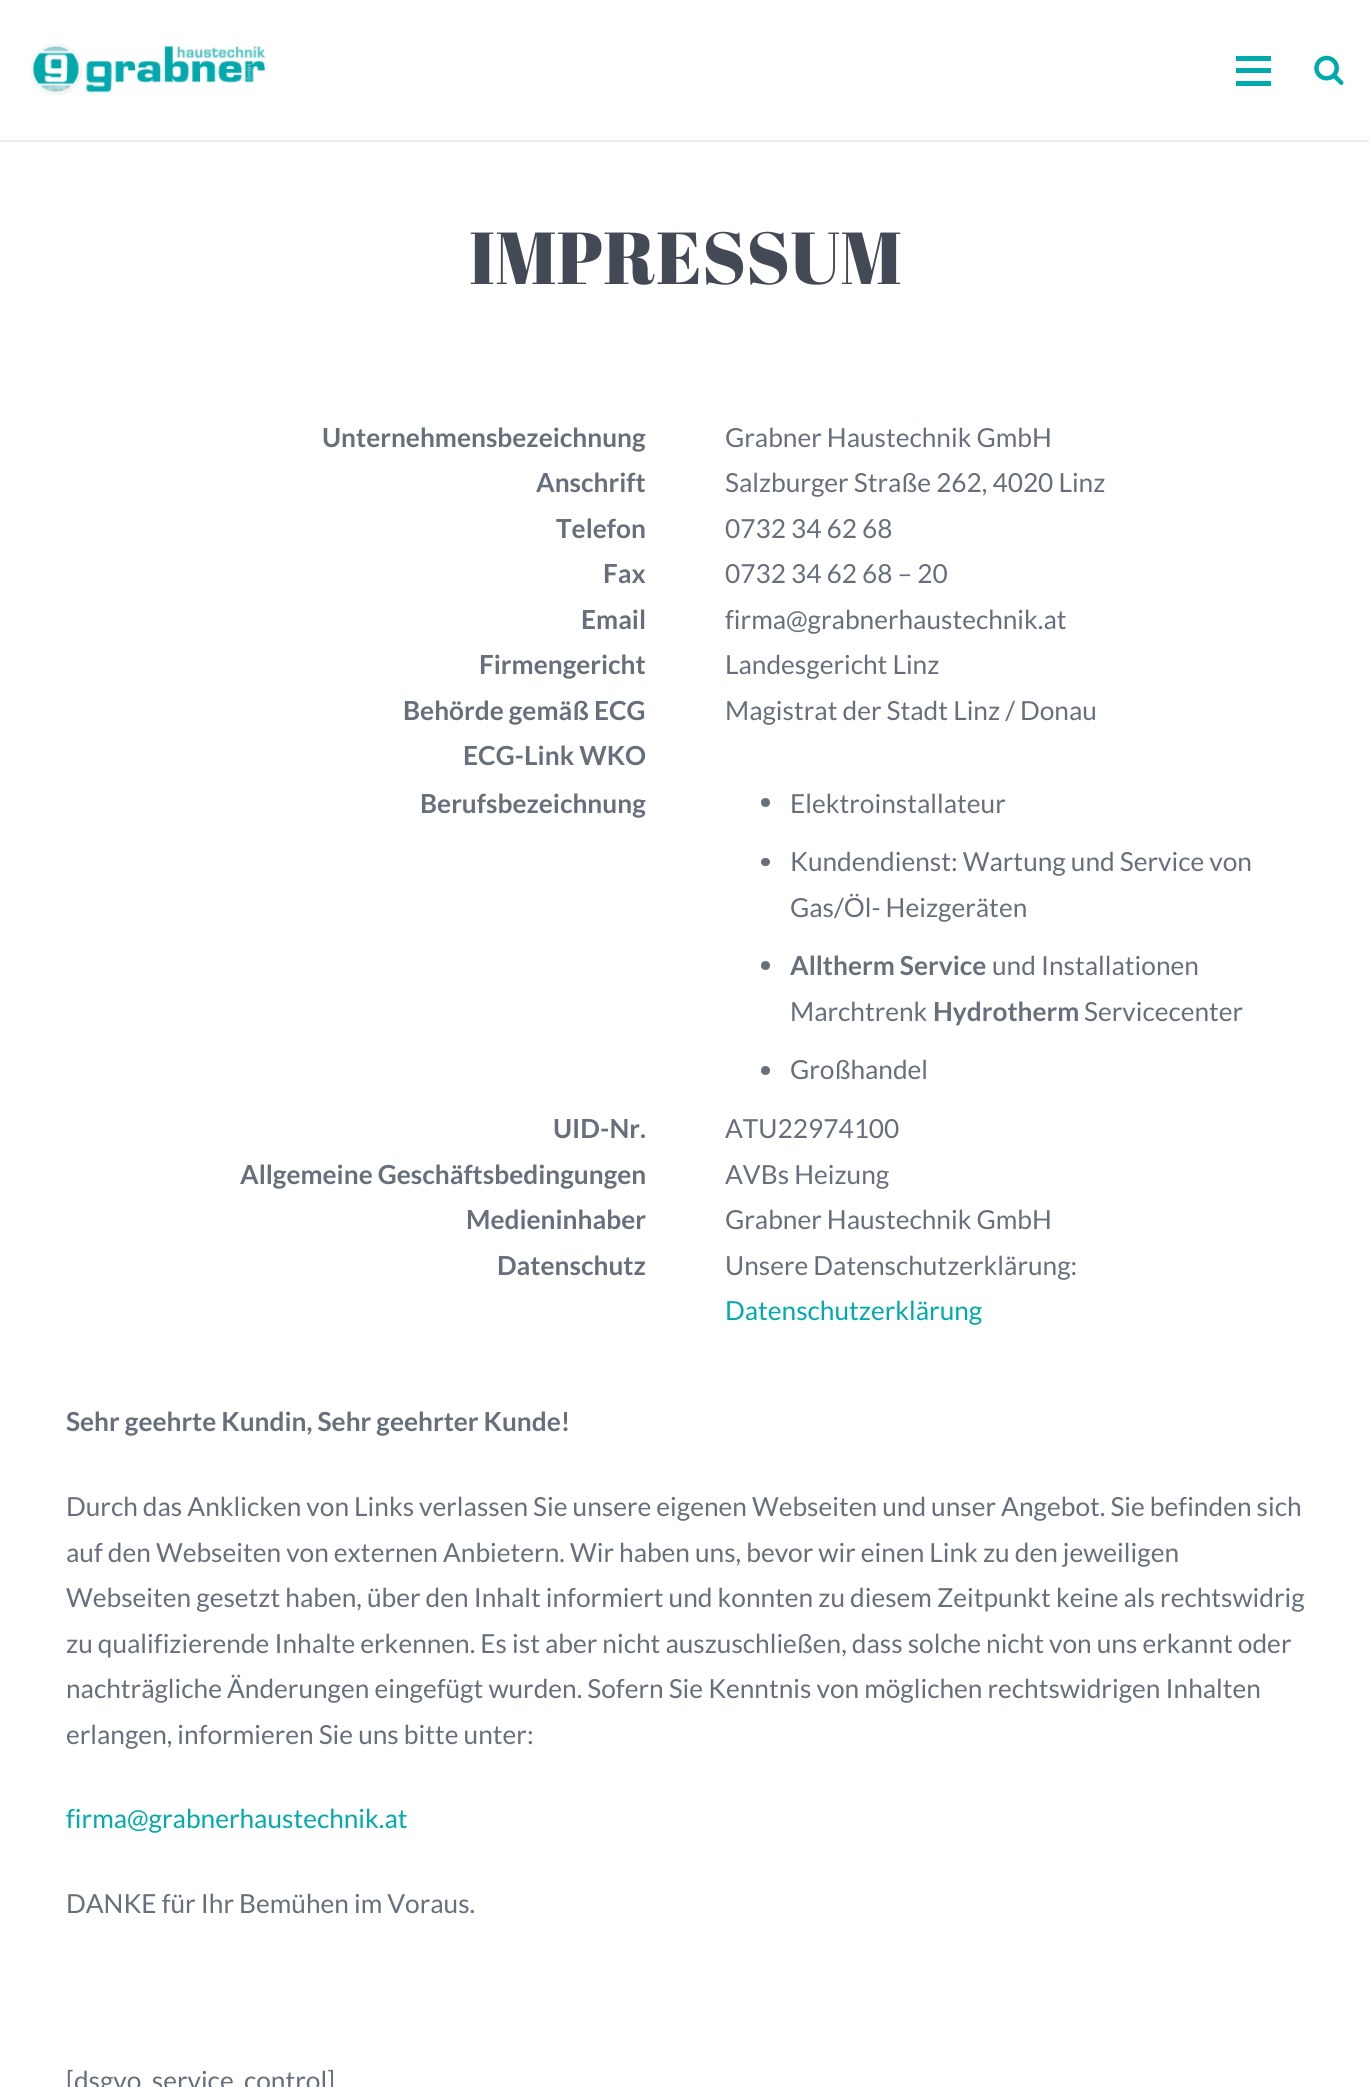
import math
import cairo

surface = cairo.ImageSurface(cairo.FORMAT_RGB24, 1369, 2087)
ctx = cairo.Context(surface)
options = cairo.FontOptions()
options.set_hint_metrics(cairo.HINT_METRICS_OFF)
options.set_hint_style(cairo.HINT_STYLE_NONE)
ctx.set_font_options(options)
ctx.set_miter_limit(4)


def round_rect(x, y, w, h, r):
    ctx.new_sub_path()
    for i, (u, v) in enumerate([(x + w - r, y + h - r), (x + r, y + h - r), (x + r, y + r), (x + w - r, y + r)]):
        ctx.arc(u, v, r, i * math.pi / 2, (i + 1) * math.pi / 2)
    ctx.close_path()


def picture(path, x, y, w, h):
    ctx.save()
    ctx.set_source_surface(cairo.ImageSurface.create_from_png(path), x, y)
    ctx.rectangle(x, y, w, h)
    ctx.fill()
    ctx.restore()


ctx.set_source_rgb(1, 1, 1)
ctx.paint()
ctx.set_source_rgb(0.922, 0.922, 0.922)
ctx.rectangle(0, 140, 1369, 2)
ctx.fill()
picture("img1.png", 30, 44, 237, 51)
ctx.set_source_rgb(0, 0.667, 0.678)
ctx.rectangle(1236, 68, 35, 5)
ctx.fill()
ctx.rectangle(1236, 56, 35, 5)
ctx.fill()
ctx.rectangle(1236, 81, 35, 5)
ctx.fill()
picture("img2.png", 1314, 55, 30, 30)
ctx.select_font_face("Abril Fatface")
ctx.set_font_size(73.5)
ctx.set_source_rgb(0.263, 0.286, 0.333)
ctx.move_to(469, 284)
ctx.show_text("IMPRESSUM")
ctx.select_font_face("Lato", cairo.FONT_SLANT_NORMAL, cairo.FONT_WEIGHT_BOLD)
ctx.set_font_size(26.25)
ctx.set_source_rgb(0.404, 0.435, 0.486)
ctx.move_to(322, 447)
ctx.show_text("Unternehmensbezeichnung")
ctx.select_font_face("Lato")
ctx.move_to(725, 447)
ctx.show_text("Grabner Haustechnik GmbH")
ctx.select_font_face("Lato", cairo.FONT_SLANT_NORMAL, cairo.FONT_WEIGHT_BOLD)
ctx.move_to(536, 492)
ctx.show_text("Anschrift")
ctx.select_font_face("Lato")
ctx.move_to(725, 492)
ctx.show_text("Salzburger Straße 262, 4020 Linz")
ctx.select_font_face("Lato", cairo.FONT_SLANT_NORMAL, cairo.FONT_WEIGHT_BOLD)
ctx.move_to(556, 538)
ctx.show_text("Telefon")
ctx.select_font_face("Lato")
ctx.move_to(725, 538)
ctx.show_text("0732 34 62 68")
ctx.select_font_face("Lato", cairo.FONT_SLANT_NORMAL, cairo.FONT_WEIGHT_BOLD)
ctx.move_to(603, 583)
ctx.show_text("Fax")
ctx.select_font_face("Lato")
ctx.move_to(725, 583)
ctx.show_text("0732 34 62 68 – 20")
ctx.select_font_face("Lato", cairo.FONT_SLANT_NORMAL, cairo.FONT_WEIGHT_BOLD)
ctx.move_to(581, 629)
ctx.show_text("Email")
ctx.select_font_face("Lato")
ctx.move_to(725, 629)
ctx.show_text("firma@grabnerhaustechnik.at")
ctx.select_font_face("Lato", cairo.FONT_SLANT_NORMAL, cairo.FONT_WEIGHT_BOLD)
ctx.move_to(479, 674)
ctx.show_text("Firmengericht")
ctx.select_font_face("Lato")
ctx.move_to(725, 674)
ctx.show_text("Landesgericht Linz")
ctx.select_font_face("Lato", cairo.FONT_SLANT_NORMAL, cairo.FONT_WEIGHT_BOLD)
ctx.move_to(403, 720)
ctx.show_text("Behörde gemäß ECG")
ctx.select_font_face("Lato")
ctx.move_to(725, 720)
ctx.show_text("Magistrat der Stadt Linz / Donau")
ctx.select_font_face("Lato", cairo.FONT_SLANT_NORMAL, cairo.FONT_WEIGHT_BOLD)
ctx.move_to(463, 765)
ctx.show_text("ECG-Link WKO")
ctx.move_to(420, 813)
ctx.show_text("Berufsbezeichnung")
ctx.new_path()
ctx.arc(765.5, 802.5, 4.5, 0, 2 * math.pi)
ctx.fill()
ctx.select_font_face("Lato")
ctx.move_to(790, 813)
ctx.show_text("Elektroinstallateur")
round_rect(761, 858, 9, 8, 4)
ctx.fill()
ctx.move_to(790, 871)
ctx.show_text("Kundendienst: Wartung und Service von")
ctx.move_to(790, 917)
ctx.show_text("Gas/Öl- Heizgeräten")
ctx.new_path()
ctx.arc(765.5, 965.5, 4.5, 0, 2 * math.pi)
ctx.fill()
ctx.select_font_face("Lato", cairo.FONT_SLANT_NORMAL, cairo.FONT_WEIGHT_BOLD)
ctx.move_to(790, 975)
ctx.show_text("Alltherm Service")
ctx.select_font_face("Lato")
ctx.move_to(992, 975)
ctx.show_text("und Installationen")
ctx.move_to(790, 1021)
ctx.show_text("Marchtrenk")
ctx.select_font_face("Lato", cairo.FONT_SLANT_NORMAL, cairo.FONT_WEIGHT_BOLD)
ctx.move_to(933, 1021)
ctx.show_text("Hydrotherm")
ctx.select_font_face("Lato")
ctx.move_to(1084, 1021)
ctx.show_text("Servicecenter")
ctx.new_path()
ctx.arc(765.5, 1070.5, 4.5, 0, 2 * math.pi)
ctx.fill()
ctx.move_to(790, 1079)
ctx.show_text("Großhandel")
ctx.select_font_face("Lato", cairo.FONT_SLANT_NORMAL, cairo.FONT_WEIGHT_BOLD)
ctx.move_to(553, 1138)
ctx.show_text("UID-Nr.")
ctx.select_font_face("Lato")
ctx.move_to(725, 1138)
ctx.show_text("ATU22974100")
ctx.select_font_face("Lato", cairo.FONT_SLANT_NORMAL, cairo.FONT_WEIGHT_BOLD)
ctx.move_to(240, 1184)
ctx.show_text("Allgemeine Geschäftsbedingungen")
ctx.select_font_face("Lato")
ctx.move_to(725, 1184)
ctx.show_text("AVBs Heizung")
ctx.select_font_face("Lato", cairo.FONT_SLANT_NORMAL, cairo.FONT_WEIGHT_BOLD)
ctx.move_to(466, 1229)
ctx.show_text("Medieninhaber")
ctx.select_font_face("Lato")
ctx.move_to(725, 1229)
ctx.show_text("Grabner Haustechnik GmbH")
ctx.select_font_face("Lato", cairo.FONT_SLANT_NORMAL, cairo.FONT_WEIGHT_BOLD)
ctx.move_to(497, 1275)
ctx.show_text("Datenschutz")
ctx.select_font_face("Lato")
ctx.move_to(725, 1275)
ctx.show_text("Unsere Datenschutzerklärung:")
ctx.set_source_rgb(0, 0.667, 0.678)
ctx.move_to(725, 1320)
ctx.show_text("Datenschutzerklärung")
ctx.select_font_face("Lato", cairo.FONT_SLANT_NORMAL, cairo.FONT_WEIGHT_BOLD)
ctx.set_source_rgb(0.404, 0.435, 0.486)
ctx.move_to(66, 1431)
ctx.show_text("Sehr geehrte Kundin, Sehr geehrter Kunde!")
ctx.select_font_face("Lato")
ctx.move_to(66, 1516)
ctx.show_text("Durch das Anklicken von Links verlassen Sie unsere eigenen Webseiten und unser Angebot. Sie befinden sich")
ctx.move_to(66, 1562)
ctx.show_text("auf den Webseiten von externen Anbietern. Wir haben uns, bevor wir einen Link zu den jeweiligen")
ctx.move_to(66, 1607)
ctx.show_text("Webseiten gesetzt haben, über den Inhalt informiert und konnten zu diesem Zeitpunkt keine als rechtswidrig")
ctx.move_to(66, 1653)
ctx.show_text("zu qualifizierende Inhalte erkennen. Es ist aber nicht auszuschließen, dass solche nicht von uns erkannt oder")
ctx.move_to(66, 1698)
ctx.show_text("nachträgliche Änderungen eingefügt wurden. Sofern Sie Kenntnis von möglichen rechtswidrigen Inhalten")
ctx.move_to(66, 1744)
ctx.show_text("erlangen, informieren Sie uns bitte unter:")
ctx.set_source_rgb(0, 0.667, 0.678)
ctx.move_to(66, 1828)
ctx.show_text("firma@grabnerhaustechnik.at")
ctx.set_source_rgb(0.404, 0.435, 0.486)
ctx.move_to(66, 1913)
ctx.show_text("DANKE für Ihr Bemühen im Voraus.")
ctx.move_to(66, 2090)
ctx.show_text("[dsgvo_service_control]")
surface.write_to_png("page.png")
